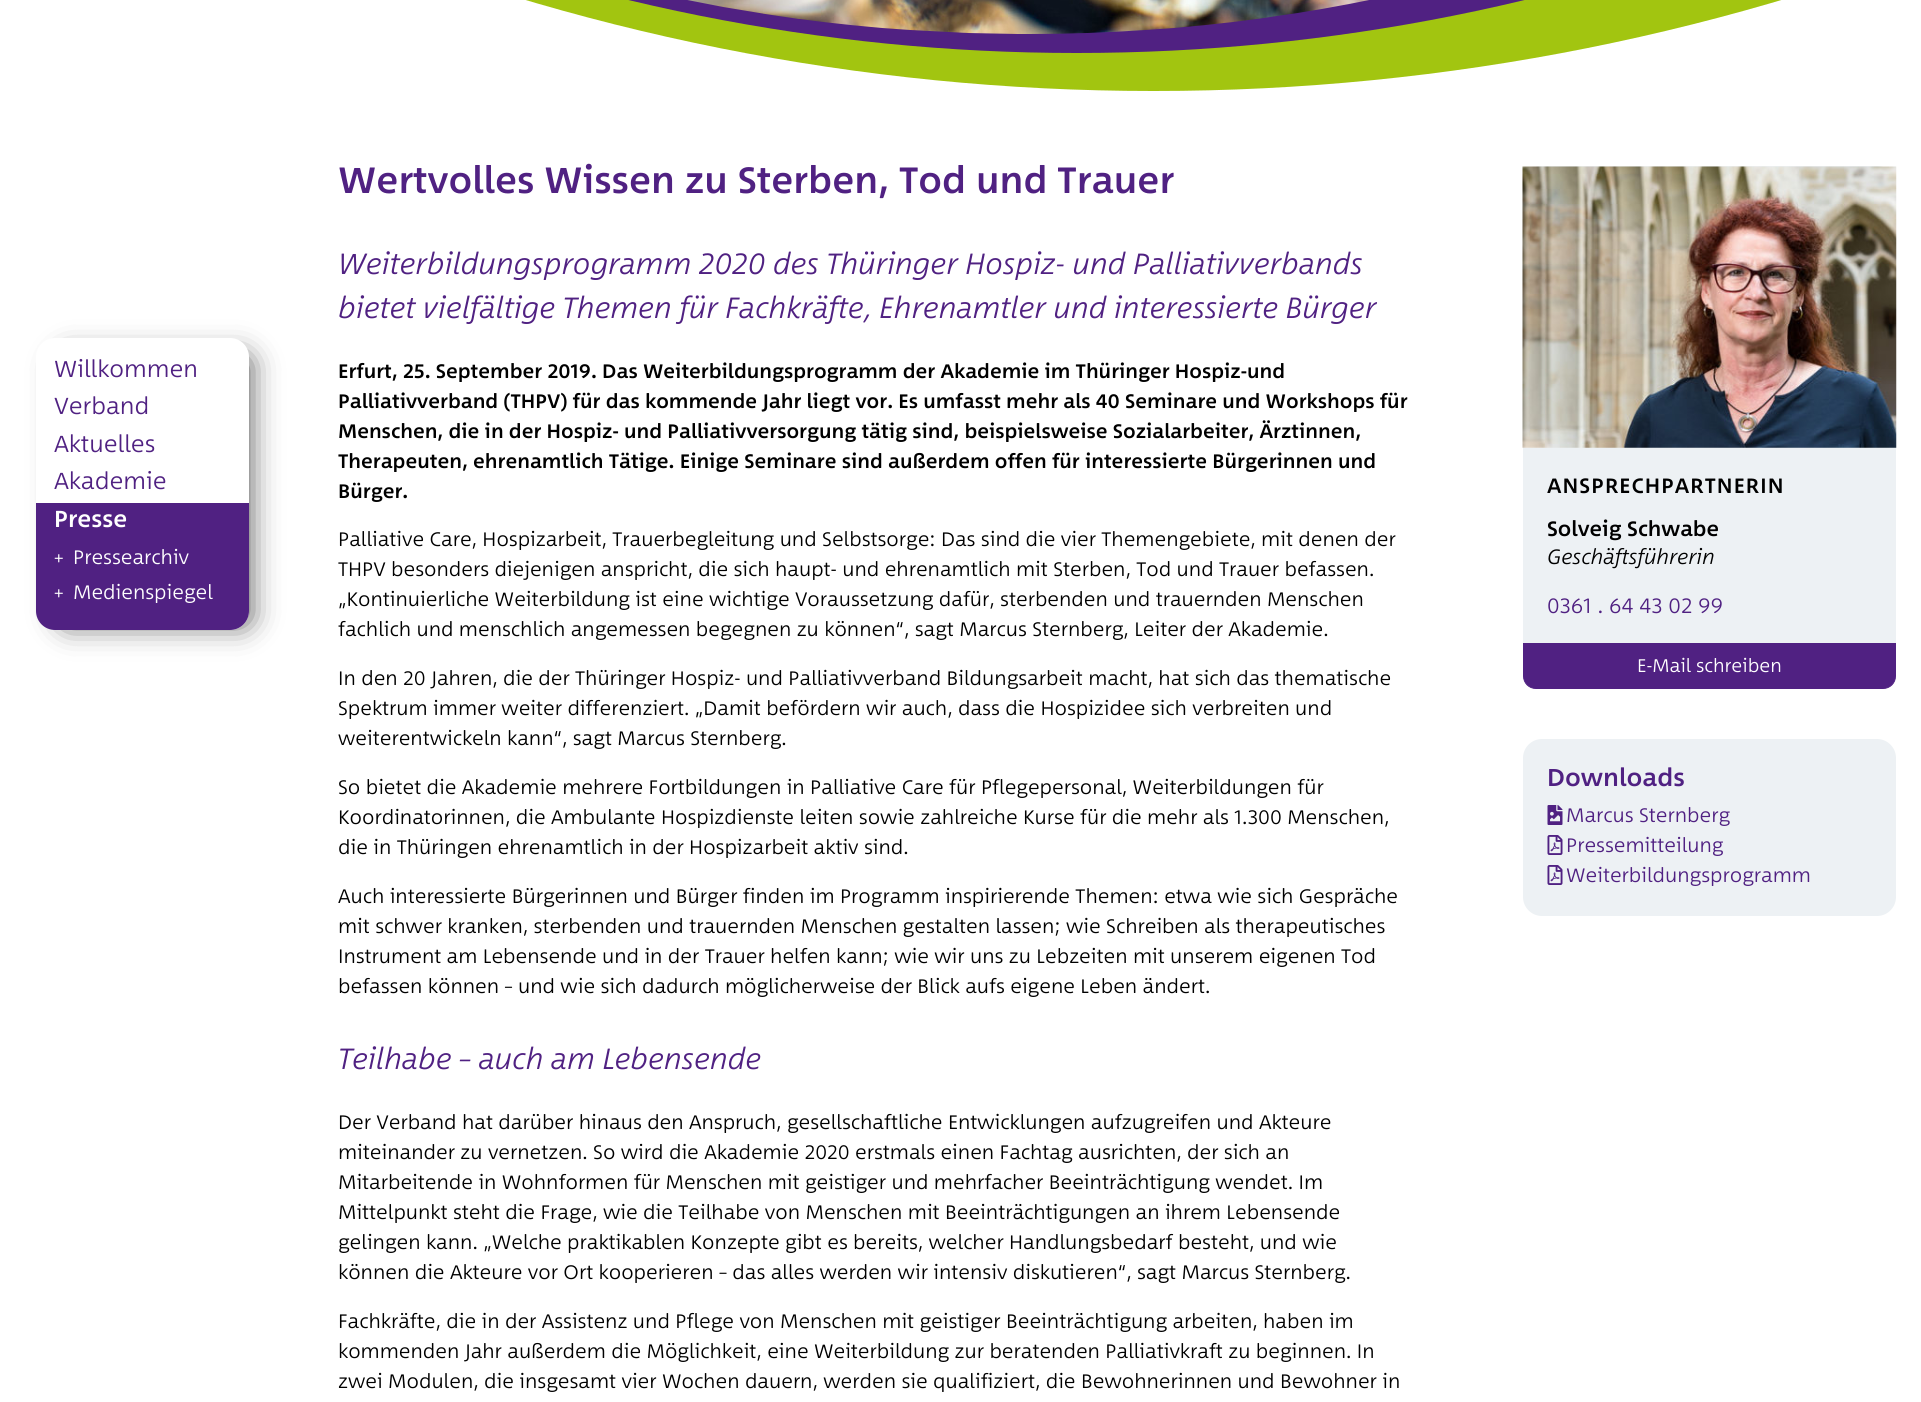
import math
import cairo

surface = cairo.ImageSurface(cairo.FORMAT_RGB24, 1921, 1402)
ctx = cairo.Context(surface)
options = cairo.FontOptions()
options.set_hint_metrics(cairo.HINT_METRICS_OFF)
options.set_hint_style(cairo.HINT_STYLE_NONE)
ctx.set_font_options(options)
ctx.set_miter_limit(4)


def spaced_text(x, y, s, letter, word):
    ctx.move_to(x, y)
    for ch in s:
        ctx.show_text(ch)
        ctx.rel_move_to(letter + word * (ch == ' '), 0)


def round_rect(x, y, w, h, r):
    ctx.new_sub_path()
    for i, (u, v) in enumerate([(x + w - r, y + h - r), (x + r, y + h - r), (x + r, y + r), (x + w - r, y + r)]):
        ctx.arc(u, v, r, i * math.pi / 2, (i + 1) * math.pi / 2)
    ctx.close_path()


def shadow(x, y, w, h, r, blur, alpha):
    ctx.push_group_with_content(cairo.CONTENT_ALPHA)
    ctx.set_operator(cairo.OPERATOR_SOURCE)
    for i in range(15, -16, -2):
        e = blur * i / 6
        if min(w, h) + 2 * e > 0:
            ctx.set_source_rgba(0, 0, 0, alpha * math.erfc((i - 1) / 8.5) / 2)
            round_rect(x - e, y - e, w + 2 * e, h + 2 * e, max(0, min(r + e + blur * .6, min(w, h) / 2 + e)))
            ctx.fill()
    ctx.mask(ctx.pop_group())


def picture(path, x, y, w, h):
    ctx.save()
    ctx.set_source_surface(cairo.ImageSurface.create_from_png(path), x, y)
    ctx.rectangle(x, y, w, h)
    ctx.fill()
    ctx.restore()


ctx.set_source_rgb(1, 1, 1)
ctx.paint()
ctx.set_source_rgb(0, 0, 0)
shadow(63, 358, 185, 265, 5, 15.5, 0.75)
ctx.set_source_rgb(1, 1, 1)
round_rect(36, 338, 213, 292, 19)
ctx.fill()
ctx.select_font_face("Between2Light")
ctx.set_font_size(23.75)
ctx.set_source_rgb(0.314, 0.129, 0.51)
ctx.move_to(54, 377)
ctx.show_text("Willkommen")
ctx.move_to(54, 414)
ctx.show_text("Verband")
ctx.move_to(54, 452)
ctx.show_text("Aktuelles")
ctx.move_to(54, 489)
ctx.show_text("Akademie")
ctx.new_path()
ctx.move_to(36, 503)
ctx.line_to(249, 503)
ctx.line_to(249, 611)
ctx.curve_to(249, 621.5, 240.5, 630, 230, 630)
ctx.line_to(55, 630)
ctx.curve_to(44.5, 630, 36, 621.5, 36, 611)
ctx.close_path()
ctx.fill()
ctx.select_font_face("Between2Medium")
ctx.set_source_rgb(1, 1, 1)
ctx.move_to(54, 527)
ctx.show_text("Presse")
ctx.select_font_face("Between2Light")
ctx.set_font_size(20)
ctx.move_to(54, 564)
ctx.show_text("+")
ctx.move_to(73, 564)
ctx.show_text("Pressearchiv")
ctx.move_to(54, 599)
ctx.show_text("+")
ctx.move_to(73, 599)
ctx.show_text("Medienspiegel")
ctx.set_source_rgb(0.635, 0.773, 0.063)
round_rect(-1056, -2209, 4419, 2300, 2209)
ctx.fill()
ctx.set_source_rgb(0.314, 0.129, 0.51)
round_rect(-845, -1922, 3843, 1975, 1921.5)
ctx.fill()
picture("img1.png", 687, 0, 682, 34)
ctx.select_font_face("Between2Medium")
ctx.set_font_size(37.5)
ctx.move_to(338, 193)
ctx.show_text("Wertvolles Wissen zu Sterben, Tod und Trauer")
ctx.select_font_face("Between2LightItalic")
ctx.set_font_size(30)
ctx.move_to(338, 274)
ctx.show_text("Weiterbildungsprogramm 2020 des Thüringer Hospiz- und Palliativverbands")
ctx.move_to(338, 318)
ctx.show_text("bietet vielfältige Themen für Fachkräfte, Ehrenamtler und interessierte Bürger")
ctx.select_font_face("Between2Medium")
ctx.set_font_size(20)
ctx.set_source_rgb(0, 0, 0)
ctx.move_to(338, 378)
ctx.show_text("Erfurt, 25. September 2019. Das Weiterbildungsprogramm der Akademie im Thüringer Hospiz-und")
ctx.move_to(338, 408)
ctx.show_text("Palliativverband (THPV) für das kommende Jahr liegt vor. Es umfasst mehr als 40 Seminare und Workshops für")
ctx.move_to(338, 438)
ctx.show_text("Menschen, die in der Hospiz- und Palliativversorgung tätig sind, beispielsweise Sozialarbeiter, Ärztinnen,")
ctx.move_to(338, 468)
ctx.show_text("Therapeuten, ehrenamtlich Tätige. Einige Seminare sind außerdem offen für interessierte Bürgerinnen und")
ctx.move_to(338, 498)
ctx.show_text("Bürger.")
ctx.select_font_face("Between2Light")
ctx.move_to(338, 546)
ctx.show_text("Palliative Care, Hospizarbeit, Trauerbegleitung und Selbstsorge: Das sind die vier Themengebiete, mit denen der")
ctx.move_to(338, 576)
ctx.show_text("THPV besonders diejenigen anspricht, die sich haupt- und ehrenamtlich mit Sterben, Tod und Trauer befassen.")
ctx.move_to(338, 606)
ctx.show_text("„Kontinuierliche Weiterbildung ist eine wichtige Voraussetzung dafür, sterbenden und trauernden Menschen")
ctx.move_to(338, 636)
ctx.show_text("fachlich und menschlich angemessen begegnen zu können“, sagt Marcus Sternberg, Leiter der Akademie.")
ctx.move_to(338, 685)
ctx.show_text("In den 20 Jahren, die der Thüringer Hospiz- und Palliativverband Bildungsarbeit macht, hat sich das thematische")
ctx.move_to(338, 715)
ctx.show_text("Spektrum immer weiter differenziert. „Damit befördern wir auch, dass die Hospizidee sich verbreiten und")
ctx.move_to(338, 745)
ctx.show_text("weiterentwickeln kann“, sagt Marcus Sternberg.")
ctx.move_to(338, 794)
ctx.show_text("So bietet die Akademie mehrere Fortbildungen in Palliative Care für Pflegepersonal, Weiterbildungen für")
ctx.move_to(338, 824)
ctx.show_text("Koordinatorinnen, die Ambulante Hospizdienste leiten sowie zahlreiche Kurse für die mehr als 1.300 Menschen,")
ctx.move_to(338, 854)
ctx.show_text("die in Thüringen ehrenamtlich in der Hospizarbeit aktiv sind.")
ctx.move_to(338, 903)
ctx.show_text("Auch interessierte Bürgerinnen und Bürger finden im Programm inspirierende Themen: etwa wie sich Gespräche")
ctx.move_to(338, 933)
ctx.show_text("mit schwer kranken, sterbenden und trauernden Menschen gestalten lassen; wie Schreiben als therapeutisches")
ctx.move_to(338, 963)
ctx.show_text("Instrument am Lebensende und in der Trauer helfen kann; wie wir uns zu Lebzeiten mit unserem eigenen Tod")
ctx.move_to(338, 993)
ctx.show_text("befassen können – und wie sich dadurch möglicherweise der Blick aufs eigene Leben ändert.")
ctx.select_font_face("Between2LightItalic")
ctx.set_font_size(30)
ctx.set_source_rgb(0.314, 0.129, 0.51)
ctx.move_to(338, 1069)
ctx.show_text("Teilhabe – auch am Lebensende")
ctx.select_font_face("Between2Light")
ctx.set_font_size(20)
ctx.set_source_rgb(0, 0, 0)
ctx.move_to(338, 1129)
ctx.show_text("Der Verband hat darüber hinaus den Anspruch, gesellschaftliche Entwicklungen aufzugreifen und Akteure")
ctx.move_to(338, 1159)
ctx.show_text("miteinander zu vernetzen. So wird die Akademie 2020 erstmals einen Fachtag ausrichten, der sich an")
ctx.move_to(338, 1189)
ctx.show_text("Mitarbeitende in Wohnformen für Menschen mit geistiger und mehrfacher Beeinträchtigung wendet. Im")
ctx.move_to(338, 1219)
ctx.show_text("Mittelpunkt steht die Frage, wie die Teilhabe von Menschen mit Beeinträchtigungen an ihrem Lebensende")
ctx.move_to(338, 1249)
ctx.show_text("gelingen kann. „Welche praktikablen Konzepte gibt es bereits, welcher Handlungsbedarf besteht, und wie")
ctx.move_to(338, 1279)
ctx.show_text("können die Akteure vor Ort kooperieren – das alles werden wir intensiv diskutieren“, sagt Marcus Sternberg.")
ctx.move_to(338, 1328)
ctx.show_text("Fachkräfte, die in der Assistenz und Pflege von Menschen mit geistiger Beeinträchtigung arbeiten, haben im")
ctx.move_to(338, 1358)
ctx.show_text("kommenden Jahr außerdem die Möglichkeit, eine Weiterbildung zur beratenden Palliativkraft zu beginnen. In")
ctx.move_to(338, 1388)
ctx.show_text("zwei Modulen, die insgesamt vier Wochen dauern, werden sie qualifiziert, die Bewohnerinnen und Bewohner in")
ctx.set_source_rgb(0.929, 0.945, 0.957)
round_rect(1523, 166, 373, 523, 19)
ctx.fill()
picture("img2.png", 1522, 166, 375, 282)
ctx.select_font_face("Between2Medium")
ctx.set_font_size(21.25)
ctx.set_source_rgb(0, 0, 0)
spaced_text(1547, 493, "ANSPRECHPARTNERIN", 1.1, 0)
ctx.move_to(1547, 536)
ctx.show_text("Solveig Schwabe")
ctx.select_font_face("Between2LightItalic")
ctx.move_to(1547, 564)
ctx.show_text("Geschäftsführerin")
ctx.select_font_face("Between2Light")
ctx.set_source_rgb(0.314, 0.129, 0.51)
ctx.move_to(1547, 613)
ctx.show_text("0361 . 64 43 02 99")
ctx.new_path()
ctx.move_to(1523.5, 643.5)
ctx.line_to(1895.5, 643.5)
ctx.line_to(1895.5, 676)
ctx.curve_to(1895.5, 683, 1890, 688.5, 1883, 688.5)
ctx.line_to(1536, 688.5)
ctx.curve_to(1529, 688.5, 1523.5, 683, 1523.5, 676)
ctx.close_path()
ctx.fill_preserve()
ctx.set_line_width(1)
ctx.stroke()
ctx.set_font_size(18.75)
ctx.set_source_rgb(1, 1, 1)
ctx.move_to(1637, 672)
ctx.show_text("E-Mail schreiben")
ctx.set_source_rgb(0.929, 0.945, 0.957)
round_rect(1523, 739, 373, 177, 19)
ctx.fill()
ctx.select_font_face("Between2Medium")
ctx.set_font_size(25)
ctx.set_source_rgb(0.314, 0.129, 0.51)
ctx.move_to(1547, 786)
ctx.show_text("Downloads")
picture("img3.png", 1547, 805, 16, 20)
ctx.select_font_face("Between2Light")
ctx.set_font_size(20)
ctx.move_to(1566, 822)
ctx.show_text("Marcus Sternberg")
picture("img4.png", 1547, 835, 16, 20)
ctx.move_to(1566, 852)
ctx.show_text("Pressemitteilung")
picture("img4.png", 1547, 865, 16, 20)
ctx.move_to(1566, 882)
ctx.show_text("Weiterbildungsprogramm")
surface.write_to_png("page.png")
